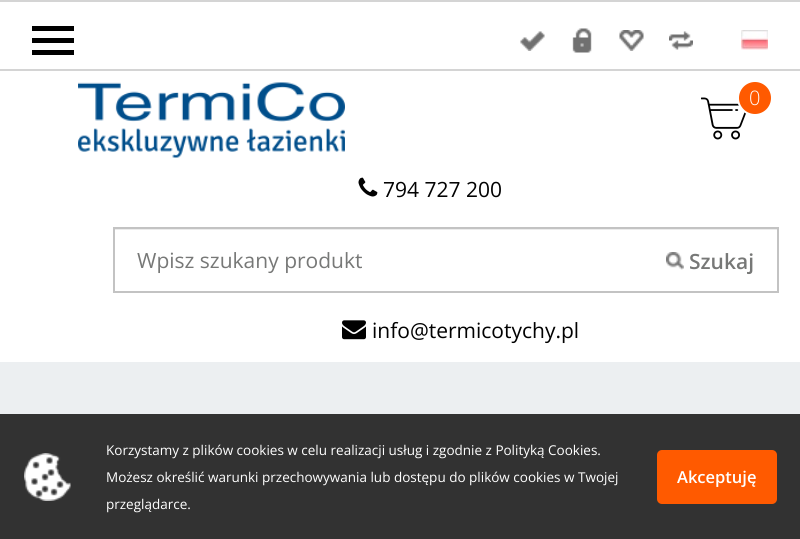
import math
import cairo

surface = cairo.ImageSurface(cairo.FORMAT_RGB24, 800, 539)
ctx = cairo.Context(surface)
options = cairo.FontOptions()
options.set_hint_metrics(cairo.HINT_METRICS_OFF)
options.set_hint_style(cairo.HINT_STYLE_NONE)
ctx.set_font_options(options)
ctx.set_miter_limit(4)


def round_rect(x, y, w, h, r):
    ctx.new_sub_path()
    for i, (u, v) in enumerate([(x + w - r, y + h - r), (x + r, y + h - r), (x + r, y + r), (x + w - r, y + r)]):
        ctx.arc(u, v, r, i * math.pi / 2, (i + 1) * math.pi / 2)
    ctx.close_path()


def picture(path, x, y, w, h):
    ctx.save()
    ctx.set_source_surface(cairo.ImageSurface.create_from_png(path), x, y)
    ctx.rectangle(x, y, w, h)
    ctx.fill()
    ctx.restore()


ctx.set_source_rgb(0.925, 0.937, 0.945)
ctx.paint()
ctx.set_source_rgb(0.831, 0.831, 0.831)
ctx.rectangle(0, 0, 800, 2)
ctx.fill()
ctx.set_source_rgb(1, 1, 1)
ctx.rectangle(0, 2, 800, 360)
ctx.fill()
ctx.set_source_rgb(0.831, 0.831, 0.831)
ctx.rectangle(0, 69, 800, 2)
ctx.fill()
ctx.set_source_rgb(0, 0, 0)
ctx.rectangle(32, 26, 42, 5)
ctx.fill()
ctx.rectangle(32, 38, 42, 5)
ctx.fill()
ctx.rectangle(32, 50, 42, 5)
ctx.fill()
picture("img1.png", 520, 31, 25, 20)
picture("img2.png", 572, 28, 20, 25)
picture("img3.png", 619, 30, 25, 21)
picture("img4.png", 669, 31, 24, 19)
picture("img5.png", 741, 30, 27, 20)
picture("img6.png", 78, 82, 267, 76)
picture("img7.png", 701, 97, 46, 43)
ctx.set_source_rgb(1, 0.353, 0)
ctx.arc(755, 98, 17, 0, 2 * math.pi)
ctx.fill_preserve()
ctx.set_source_rgb(1, 1, 1)
ctx.stroke()
ctx.select_font_face("Open Sans Light")
ctx.set_font_size(20)
ctx.move_to(749, 105)
ctx.show_text("0")
picture("img8.png", 358, 177, 20, 20)
ctx.select_font_face("Open Sans")
ctx.set_font_size(21)
ctx.set_source_rgb(0.004, 0.004, 0.004)
ctx.move_to(383, 197)
ctx.show_text("794 727 200")
ctx.set_source_rgb(0.925, 0.925, 0.925)
ctx.rectangle(114, 229, 663, 1)
ctx.fill()
ctx.rectangle(114, 228, 664, 64)
ctx.set_source_rgb(0.765, 0.765, 0.765)
ctx.stroke()
ctx.set_source_rgb(0.467, 0.471, 0.467)
ctx.move_to(137, 268)
ctx.show_text("Wpisz szukany produkt")
picture("img9.png", 666, 252, 18, 18)
ctx.select_font_face("Open Sans SemiBold")
ctx.move_to(689, 269)
ctx.show_text("Szukaj")
picture("img10.png", 342, 320, 24, 20)
ctx.select_font_face("Open Sans")
ctx.set_source_rgb(0.004, 0.004, 0.004)
ctx.move_to(372, 338)
ctx.show_text("info@termicotychy.pl")
ctx.set_source_rgb(0.196, 0.196, 0.196)
ctx.rectangle(0, 414, 800, 125)
ctx.fill()
picture("img11.png", 24, 453, 47, 48)
ctx.set_font_size(13.5)
ctx.set_source_rgb(1, 1, 1)
ctx.move_to(106, 455)
ctx.show_text("Korzystamy z plików cookies w celu realizacji usług i zgodnie z Polityką Cookies.")
ctx.move_to(106, 482)
ctx.show_text("Możesz określić warunki przechowywania lub dostępu do plików cookies w Twojej")
ctx.move_to(106, 509)
ctx.show_text("przeglądarce.")
ctx.set_source_rgb(1, 0.353, 0)
round_rect(657, 450, 120, 54, 5)
ctx.fill()
ctx.select_font_face("Open Sans SemiBold")
ctx.set_font_size(16.5)
ctx.set_source_rgb(1, 1, 1)
ctx.move_to(677, 483)
ctx.show_text("Akceptuję")
surface.write_to_png("page.png")
